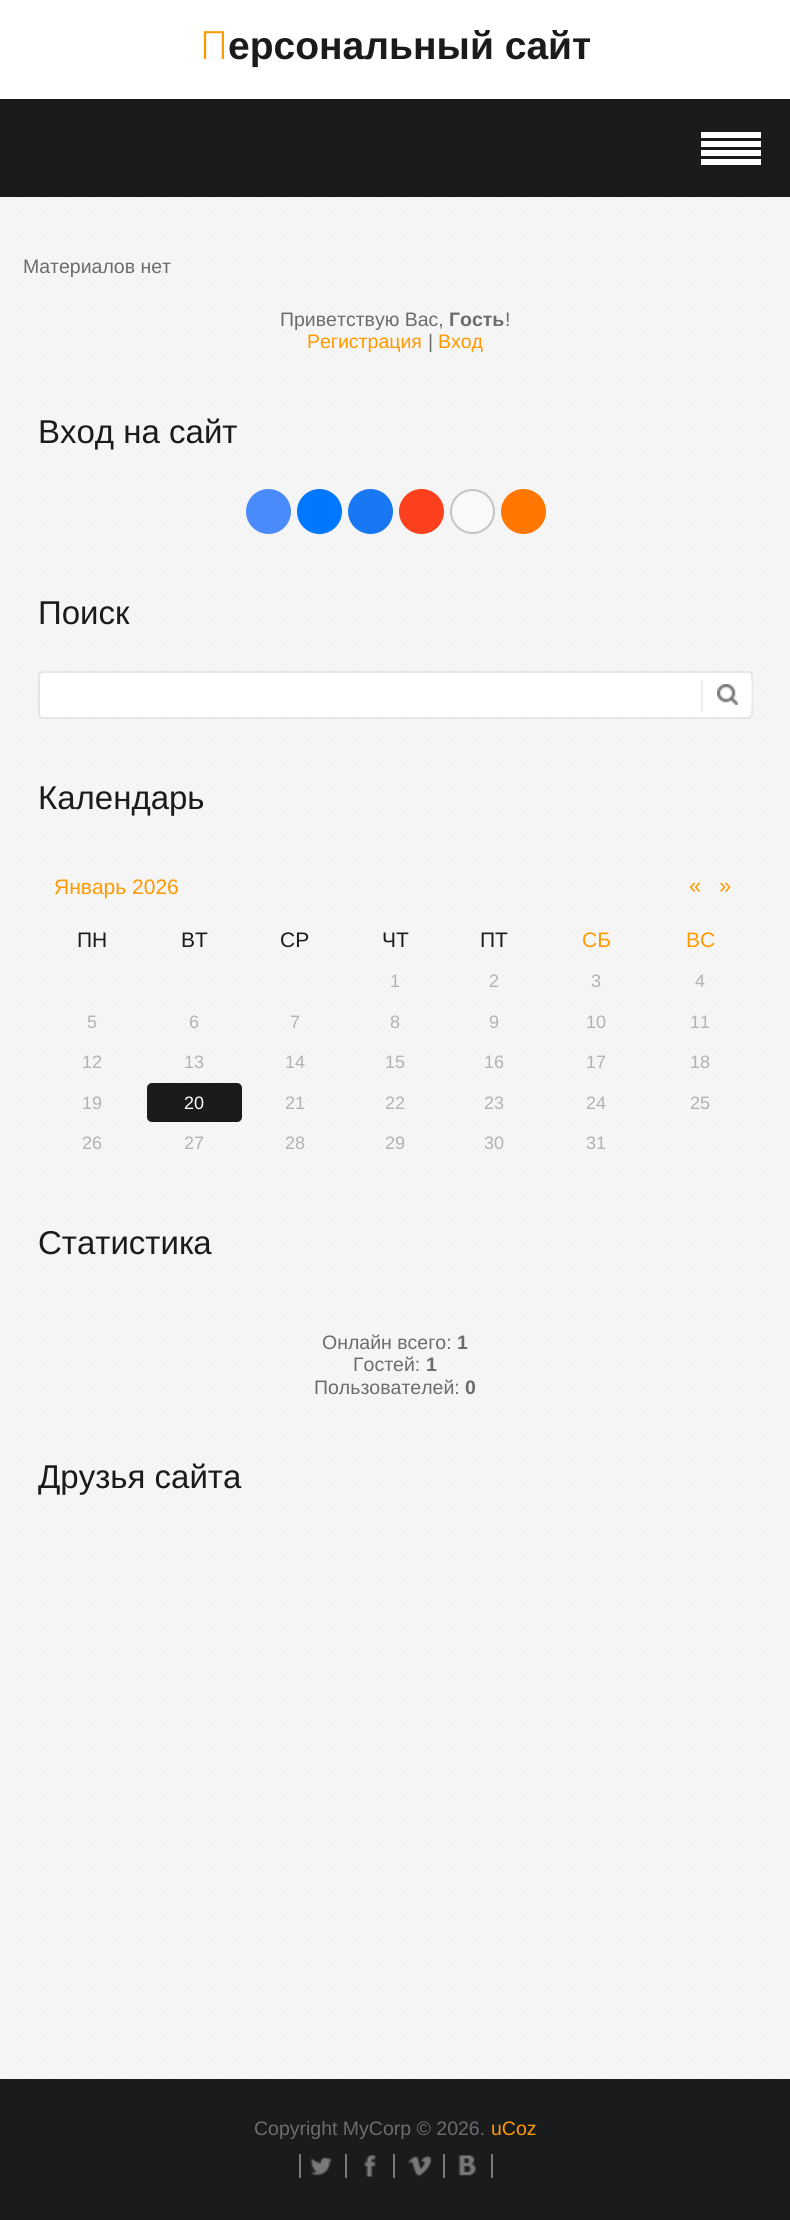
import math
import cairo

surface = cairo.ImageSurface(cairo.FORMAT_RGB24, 790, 2220)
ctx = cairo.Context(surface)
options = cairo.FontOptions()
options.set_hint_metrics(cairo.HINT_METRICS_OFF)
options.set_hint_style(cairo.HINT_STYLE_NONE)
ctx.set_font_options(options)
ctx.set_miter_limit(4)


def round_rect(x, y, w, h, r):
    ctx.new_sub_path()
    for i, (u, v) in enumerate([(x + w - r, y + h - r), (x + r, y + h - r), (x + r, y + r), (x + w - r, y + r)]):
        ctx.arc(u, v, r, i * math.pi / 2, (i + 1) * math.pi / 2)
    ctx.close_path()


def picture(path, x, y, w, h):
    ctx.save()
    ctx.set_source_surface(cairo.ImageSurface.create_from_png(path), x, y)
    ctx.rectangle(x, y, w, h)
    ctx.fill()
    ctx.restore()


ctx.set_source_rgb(1, 1, 1)
ctx.paint()
picture("img1.png", 0, 197, 790, 1882)
ctx.select_font_face("Noto Sans Light")
ctx.set_font_size(39)
ctx.set_source_rgb(1, 0.6, 0)
ctx.move_to(200, 59)
ctx.show_text("П")
ctx.select_font_face("Liberation Sans", cairo.FONT_SLANT_NORMAL, cairo.FONT_WEIGHT_BOLD)
ctx.set_source_rgb(0.102, 0.106, 0.114)
ctx.move_to(228, 59)
ctx.show_text("ерсональный сайт")
ctx.rectangle(0, 99, 790, 98)
ctx.fill()
ctx.set_source_rgb(1, 1, 1)
ctx.rectangle(701, 132, 60, 6)
ctx.fill()
ctx.rectangle(701, 141, 60, 6)
ctx.fill()
ctx.rectangle(701, 150, 60, 6)
ctx.fill()
ctx.rectangle(701, 159, 60, 6)
ctx.fill()
ctx.select_font_face("Liberation Sans")
ctx.set_font_size(19.5)
ctx.set_source_rgb(0.424, 0.424, 0.424)
ctx.move_to(23, 273)
ctx.show_text("Материалов нет")
ctx.move_to(280, 326)
ctx.show_text("Приветствую Вас,")
ctx.select_font_face("Liberation Sans", cairo.FONT_SLANT_NORMAL, cairo.FONT_WEIGHT_BOLD)
ctx.move_to(449, 326)
ctx.show_text("Гость")
ctx.select_font_face("Liberation Sans")
ctx.move_to(505, 326)
ctx.show_text("!")
ctx.set_source_rgb(1, 0.6, 0)
ctx.move_to(307, 348)
ctx.show_text("Регистрация")
ctx.set_source_rgb(0.424, 0.424, 0.424)
ctx.move_to(428, 348)
ctx.show_text("|")
ctx.set_source_rgb(1, 0.6, 0)
ctx.move_to(438, 348)
ctx.show_text("Вход")
ctx.set_font_size(33)
ctx.set_source_rgb(0.102, 0.106, 0.114)
ctx.move_to(38, 443)
ctx.show_text("Вход на сайт")
ctx.set_source_rgb(0.286, 0.545, 0.98)
ctx.new_path()
ctx.arc(268.5, 511.5, 22.5, 0, 2 * math.pi)
ctx.fill()
ctx.set_source_rgb(0, 0.467, 1)
ctx.arc(319.5, 511.5, 22.5, 0, 2 * math.pi)
ctx.fill()
ctx.set_source_rgb(0.094, 0.467, 0.949)
ctx.arc(370.5, 511.5, 22.5, 0, 2 * math.pi)
ctx.fill()
ctx.set_source_rgb(0.988, 0.247, 0.114)
ctx.arc(421.5, 511.5, 22.5, 0, 2 * math.pi)
ctx.fill()
ctx.set_source_rgb(0.973, 0.973, 0.988)
ctx.arc(472.5, 511.5, 21.5, 0, 2 * math.pi)
ctx.fill_preserve()
ctx.set_source_rgb(0.769, 0.769, 0.769)
ctx.stroke()
ctx.set_source_rgb(1, 0.467, 0)
ctx.arc(523.5, 511.5, 22.5, 0, 2 * math.pi)
ctx.fill()
ctx.set_source_rgb(0.102, 0.106, 0.114)
ctx.move_to(38, 624)
ctx.show_text("Поиск")
ctx.set_source_rgb(1, 1, 1)
round_rect(39, 672, 713, 46, 4)
ctx.fill_preserve()
ctx.set_source_rgb(0.902, 0.902, 0.902)
ctx.stroke()
ctx.set_source_rgba(1, 1, 1, 0.6)
round_rect(701, 677, 51, 36, 5)
ctx.fill()
picture("img2.png", 717, 684, 21, 21)
ctx.set_source_rgb(0.922, 0.922, 0.922)
ctx.rectangle(701, 680, 2, 31)
ctx.fill()
ctx.set_source_rgb(0.102, 0.106, 0.114)
ctx.move_to(38, 809)
ctx.show_text("Календарь")
ctx.set_font_size(21)
ctx.set_source_rgb(1, 0.6, 0)
ctx.move_to(54, 894)
ctx.show_text("Январь 2026")
ctx.set_font_size(22)
ctx.move_to(689, 893)
ctx.show_text("«")
ctx.move_to(719, 893)
ctx.show_text("»")
ctx.set_font_size(21)
ctx.set_source_rgb(0.102, 0.106, 0.114)
ctx.move_to(77, 947)
ctx.show_text("ПН")
ctx.move_to(181, 947)
ctx.show_text("ВТ")
ctx.move_to(280, 947)
ctx.show_text("СР")
ctx.move_to(382, 947)
ctx.show_text("ЧТ")
ctx.move_to(480, 947)
ctx.show_text("ПТ")
ctx.set_source_rgb(1, 0.6, 0)
ctx.move_to(582, 947)
ctx.show_text("СБ")
ctx.move_to(686, 947)
ctx.show_text("ВС")
ctx.set_font_size(18)
ctx.set_source_rgb(0.698, 0.698, 0.698)
ctx.move_to(390, 987)
ctx.show_text("1")
ctx.move_to(489, 987)
ctx.show_text("2")
ctx.move_to(591, 987)
ctx.show_text("3")
ctx.move_to(695, 987)
ctx.show_text("4")
ctx.move_to(87, 1028)
ctx.show_text("5")
ctx.move_to(189, 1028)
ctx.show_text("6")
ctx.move_to(290, 1028)
ctx.show_text("7")
ctx.move_to(390, 1028)
ctx.show_text("8")
ctx.move_to(489, 1028)
ctx.show_text("9")
ctx.move_to(586, 1028)
ctx.show_text("10")
ctx.move_to(690, 1028)
ctx.show_text("11")
ctx.move_to(82, 1068)
ctx.show_text("12")
ctx.move_to(184, 1068)
ctx.show_text("13")
ctx.move_to(285, 1068)
ctx.show_text("14")
ctx.move_to(385, 1068)
ctx.show_text("15")
ctx.move_to(484, 1068)
ctx.show_text("16")
ctx.move_to(586, 1068)
ctx.show_text("17")
ctx.move_to(690, 1068)
ctx.show_text("18")
ctx.move_to(82, 1109)
ctx.show_text("19")
ctx.set_source_rgb(0.102, 0.106, 0.114)
round_rect(147, 1083, 95, 39, 5)
ctx.fill()
ctx.set_source_rgb(1, 1, 1)
ctx.move_to(184, 1109)
ctx.show_text("20")
ctx.set_source_rgb(0.698, 0.698, 0.698)
ctx.move_to(285, 1109)
ctx.show_text("21")
ctx.move_to(385, 1109)
ctx.show_text("22")
ctx.move_to(484, 1109)
ctx.show_text("23")
ctx.move_to(586, 1109)
ctx.show_text("24")
ctx.move_to(690, 1109)
ctx.show_text("25")
ctx.move_to(82, 1149)
ctx.show_text("26")
ctx.move_to(184, 1149)
ctx.show_text("27")
ctx.move_to(285, 1149)
ctx.show_text("28")
ctx.move_to(385, 1149)
ctx.show_text("29")
ctx.move_to(484, 1149)
ctx.show_text("30")
ctx.move_to(586, 1149)
ctx.show_text("31")
ctx.set_font_size(33)
ctx.set_source_rgb(0.102, 0.106, 0.114)
ctx.move_to(38, 1254)
ctx.show_text("Статистика")
ctx.set_font_size(19.5)
ctx.set_source_rgb(0.424, 0.424, 0.424)
ctx.move_to(322, 1349)
ctx.show_text("Онлайн всего:")
ctx.select_font_face("Liberation Sans", cairo.FONT_SLANT_NORMAL, cairo.FONT_WEIGHT_BOLD)
ctx.move_to(457, 1349)
ctx.show_text("1")
ctx.select_font_face("Liberation Sans")
ctx.move_to(353, 1371)
ctx.show_text("Гостей:")
ctx.select_font_face("Liberation Sans", cairo.FONT_SLANT_NORMAL, cairo.FONT_WEIGHT_BOLD)
ctx.move_to(426, 1371)
ctx.show_text("1")
ctx.select_font_face("Liberation Sans")
ctx.move_to(314, 1394)
ctx.show_text("Пользователей:")
ctx.select_font_face("Liberation Sans", cairo.FONT_SLANT_NORMAL, cairo.FONT_WEIGHT_BOLD)
ctx.move_to(465, 1394)
ctx.show_text("0")
ctx.select_font_face("Liberation Sans")
ctx.set_font_size(33)
ctx.set_source_rgb(0.102, 0.106, 0.114)
ctx.move_to(38, 1488)
ctx.show_text("Друзья сайта")
ctx.rectangle(0, 2079, 790, 141)
ctx.fill()
ctx.set_font_size(19.5)
ctx.set_source_rgb(0.424, 0.424, 0.424)
ctx.move_to(254, 2135)
ctx.show_text("Copyright MyCorp © 2026.")
ctx.set_source_rgb(1, 0.6, 0)
ctx.move_to(491, 2135)
ctx.show_text("uCoz")
ctx.set_source_rgb(0.471, 0.475, 0.478)
ctx.rectangle(345, 2154, 2, 24)
ctx.fill()
ctx.rectangle(299, 2154, 2, 24)
ctx.fill()
picture("img3.png", 310, 2157, 22, 19)
ctx.rectangle(393, 2154, 2, 24)
ctx.fill()
picture("img4.png", 364, 2155, 12, 22)
ctx.rectangle(443, 2154, 2, 24)
ctx.fill()
picture("img5.png", 408, 2155, 24, 22)
ctx.rectangle(491, 2154, 2, 24)
ctx.fill()
picture("img6.png", 458, 2155, 18, 21)
surface.write_to_png("page.png")
